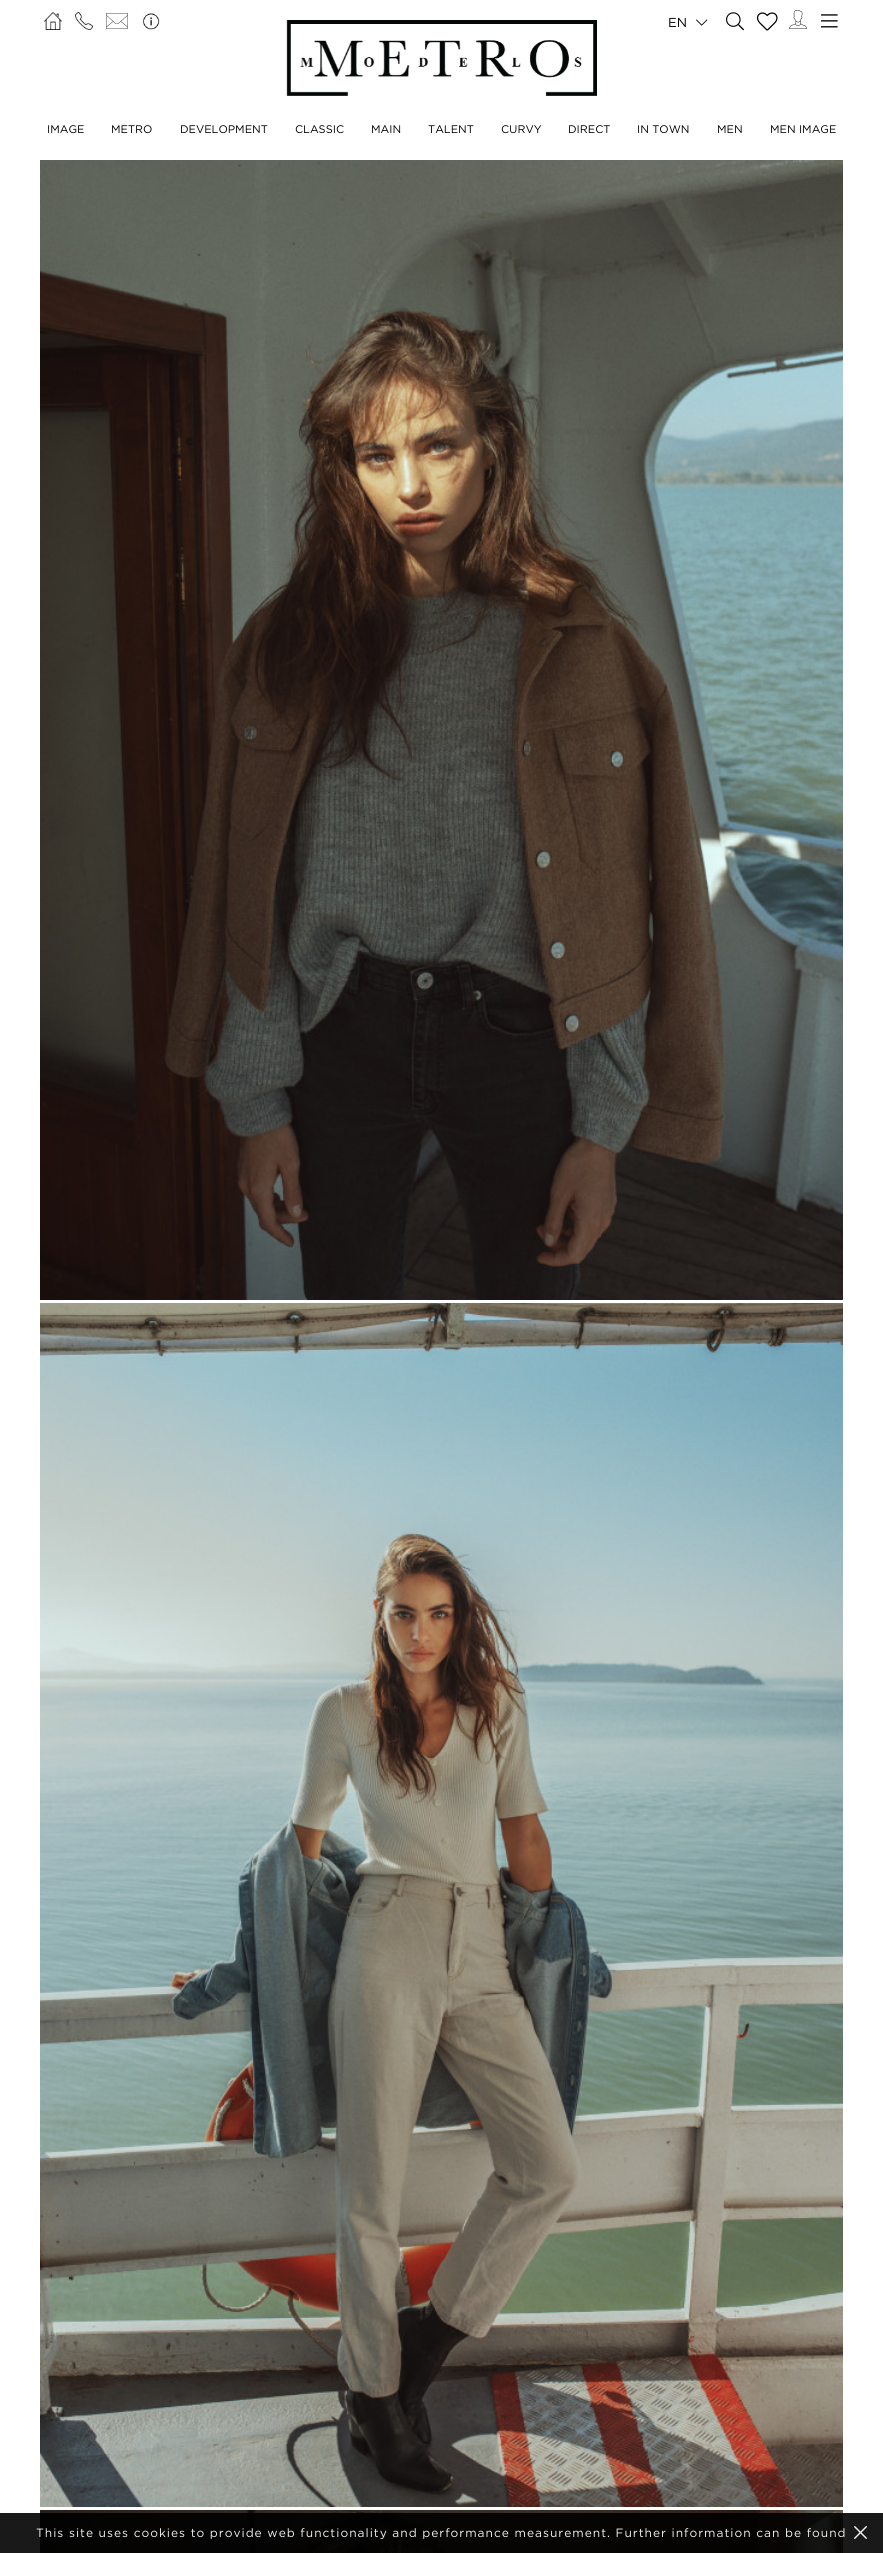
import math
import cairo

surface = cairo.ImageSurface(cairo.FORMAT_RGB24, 883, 2553)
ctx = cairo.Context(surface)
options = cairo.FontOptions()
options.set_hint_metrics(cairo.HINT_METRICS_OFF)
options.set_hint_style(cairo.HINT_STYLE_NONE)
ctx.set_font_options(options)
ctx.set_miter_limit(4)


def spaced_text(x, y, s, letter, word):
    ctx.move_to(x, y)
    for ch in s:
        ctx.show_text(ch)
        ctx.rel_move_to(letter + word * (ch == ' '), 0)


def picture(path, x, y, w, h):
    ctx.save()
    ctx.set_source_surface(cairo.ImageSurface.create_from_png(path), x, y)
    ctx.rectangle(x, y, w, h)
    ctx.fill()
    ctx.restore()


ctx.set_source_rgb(1, 1, 1)
ctx.paint()
ctx.set_source_rgb(0.098, 0.098, 0.098)
ctx.rectangle(0, 2513, 883, 40)
ctx.fill()
picture("img1.png", 44, 12, 18, 18)
picture("img2.png", 75, 12, 18, 18)
picture("img3.png", 106, 13, 22, 16)
picture("img4.png", 142, 13, 18, 17)
picture("img5.png", 286, 20, 311, 76)
ctx.select_font_face("Gotham")
ctx.set_font_size(13)
ctx.set_source_rgb(0, 0, 0)
ctx.move_to(668, 27)
ctx.show_text("EN")
picture("img6.png", 696, 19, 12, 7)
picture("img7.png", 726, 12, 18, 19)
picture("img8.png", 756, 12, 22, 19)
picture("img9.png", 789, 10, 18, 19)
picture("img10.png", 821, 14, 17, 14)
ctx.set_font_size(11)
ctx.move_to(47, 133)
ctx.show_text("IMAGE")
ctx.move_to(111, 133)
ctx.show_text("METRO")
ctx.move_to(180, 133)
ctx.show_text("DEVELOPMENT")
ctx.move_to(295, 133)
ctx.show_text("CLASSIC")
ctx.move_to(371, 133)
ctx.show_text("MAIN")
ctx.move_to(428, 133)
ctx.show_text("TALENT")
ctx.move_to(501, 133)
ctx.show_text("CURVY")
ctx.move_to(568, 133)
ctx.show_text("DIRECT")
ctx.move_to(637, 133)
ctx.show_text("IN TOWN")
ctx.move_to(717, 133)
ctx.show_text("MEN")
ctx.move_to(770, 133)
ctx.show_text("MEN IMAGE")
picture("img11.png", 40, 160, 803, 1140)
picture("img12.png", 40, 1303, 803, 1204)
picture("img13.png", 40, 2510, 803, 43)
ctx.set_font_size(12)
ctx.set_source_rgb(0.949, 0.949, 0.949)
spaced_text(36, 2537, "This site uses cookies to provide web functionality and performance measurement. Further information can be found", 1, 0)
picture("img14.png", 854, 2526, 13, 13)
surface.write_to_png("page.png")
